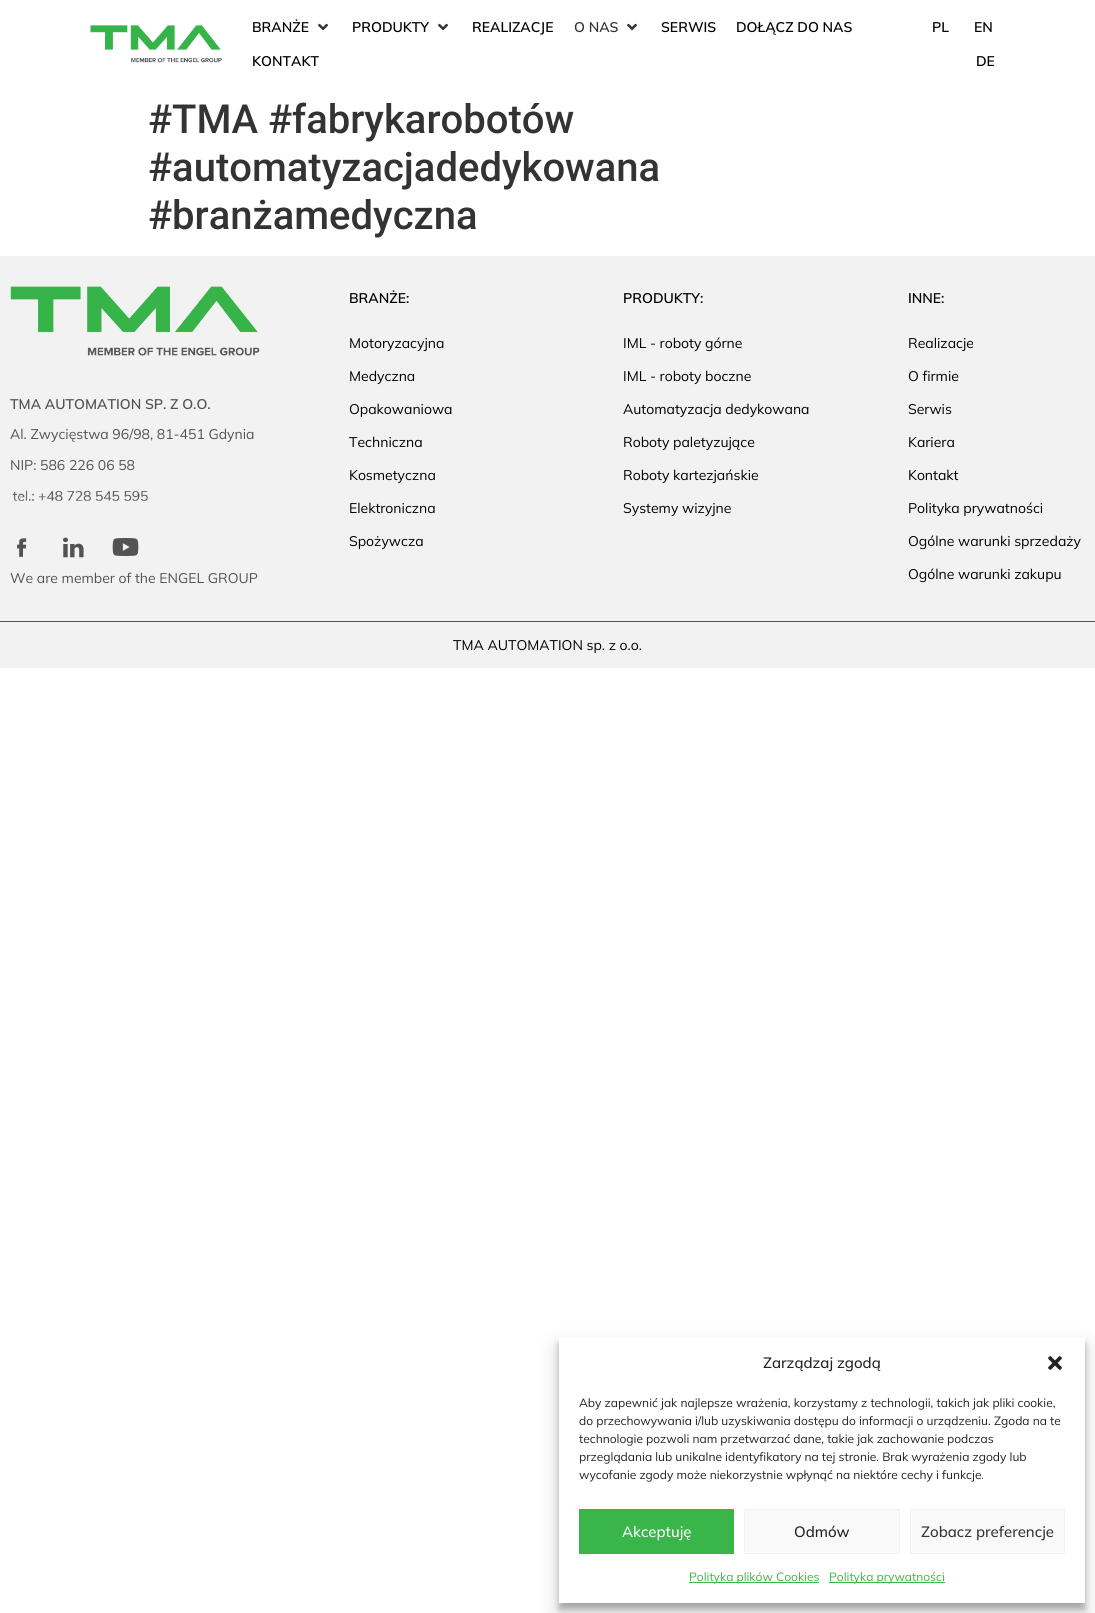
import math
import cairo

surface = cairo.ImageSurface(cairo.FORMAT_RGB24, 1095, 1613)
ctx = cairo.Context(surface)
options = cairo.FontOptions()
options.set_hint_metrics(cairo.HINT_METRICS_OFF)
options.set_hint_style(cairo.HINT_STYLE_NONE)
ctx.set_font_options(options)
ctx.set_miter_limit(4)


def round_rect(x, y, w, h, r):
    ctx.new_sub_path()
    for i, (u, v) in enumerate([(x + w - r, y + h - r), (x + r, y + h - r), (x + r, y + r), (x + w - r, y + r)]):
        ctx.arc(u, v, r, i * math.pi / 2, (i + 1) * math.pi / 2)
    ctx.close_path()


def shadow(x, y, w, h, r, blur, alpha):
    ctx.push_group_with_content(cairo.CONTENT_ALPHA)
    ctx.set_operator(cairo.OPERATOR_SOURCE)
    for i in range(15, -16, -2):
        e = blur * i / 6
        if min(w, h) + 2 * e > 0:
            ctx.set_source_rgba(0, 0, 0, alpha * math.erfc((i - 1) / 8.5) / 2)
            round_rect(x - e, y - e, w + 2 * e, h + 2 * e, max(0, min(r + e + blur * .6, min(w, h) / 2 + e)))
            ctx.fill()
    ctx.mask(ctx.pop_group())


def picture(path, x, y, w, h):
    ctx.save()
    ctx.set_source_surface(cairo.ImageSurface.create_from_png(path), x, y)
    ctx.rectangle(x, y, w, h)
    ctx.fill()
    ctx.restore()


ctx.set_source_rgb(1, 1, 1)
ctx.paint()
picture("img1.png", 90, 25, 132, 38)
ctx.select_font_face("Mulish SemiBold")
ctx.set_font_size(14)
ctx.set_source_rgb(0, 0, 0)
ctx.move_to(252, 32)
ctx.show_text("BRANŻE")
picture("img2.png", 318, 23, 10, 8)
ctx.move_to(352, 32)
ctx.show_text("PRODUKTY")
picture("img2.png", 438, 23, 10, 8)
ctx.move_to(472, 32)
ctx.show_text("REALIZACJE")
ctx.set_source_rgb(0.2, 0.2, 0.2)
ctx.move_to(574, 32)
ctx.show_text("O NAS")
picture("img2.png", 627, 23, 10, 8)
ctx.set_source_rgb(0, 0, 0)
ctx.move_to(661, 32)
ctx.show_text("SERWIS")
ctx.move_to(736, 32)
ctx.show_text("DOŁĄCZ DO NAS")
ctx.move_to(252, 66)
ctx.show_text("KONTAKT")
ctx.move_to(932, 32)
ctx.show_text("PL")
ctx.move_to(974, 32)
ctx.show_text("EN")
ctx.move_to(976, 66)
ctx.show_text("DE")
ctx.select_font_face("Roboto Medium")
ctx.set_font_size(40)
ctx.set_source_rgb(0.2, 0.2, 0.2)
ctx.move_to(148, 133)
ctx.show_text("#TMA #fabrykarobotów")
ctx.move_to(148, 181)
ctx.show_text("#automatyzacjadedykowana")
ctx.move_to(148, 229)
ctx.show_text("#branżamedyczna")
ctx.set_source_rgb(0.949, 0.949, 0.949)
ctx.rectangle(0, 256, 1095, 365)
ctx.fill()
picture("img3.png", 10, 286, 250, 70)
ctx.select_font_face("Mulish SemiBold")
ctx.set_font_size(14)
ctx.set_source_rgb(0.325, 0.325, 0.325)
ctx.move_to(10, 409)
ctx.show_text("TMA AUTOMATION SP. Z O.O.")
ctx.select_font_face("Mulish")
ctx.move_to(10, 439)
ctx.show_text("Al. Zwycięstwa 96/98, 81-451 Gdynia")
ctx.move_to(10, 470)
ctx.show_text("NIP: 586 226 06 58")
picture("img4.png", 12, 490, 136, 11)
picture("img5.png", 17, 538, 10, 19)
picture("img6.png", 63, 537, 21, 21)
picture("img7.png", 112, 538, 27, 18)
ctx.move_to(10, 583)
ctx.show_text("We are member of the ENGEL GROUP")
ctx.select_font_face("Mulish SemiBold")
ctx.set_source_rgb(0, 0, 0)
ctx.move_to(349, 303)
ctx.show_text("BRANŻE:")
ctx.select_font_face("Mulish")
ctx.move_to(349, 348)
ctx.show_text("Motoryzacyjna")
ctx.move_to(349, 381)
ctx.show_text("Medyczna")
ctx.move_to(349, 414)
ctx.show_text("Opakowaniowa")
ctx.move_to(349, 447)
ctx.show_text("Techniczna")
ctx.move_to(349, 480)
ctx.show_text("Kosmetyczna")
ctx.move_to(349, 513)
ctx.show_text("Elektroniczna")
ctx.move_to(349, 546)
ctx.show_text("Spożywcza")
ctx.select_font_face("Mulish SemiBold")
ctx.move_to(623, 303)
ctx.show_text("PRODUKTY:")
ctx.select_font_face("Mulish")
ctx.move_to(623, 348)
ctx.show_text("IML - roboty górne")
ctx.move_to(623, 381)
ctx.show_text("IML - roboty boczne")
ctx.move_to(623, 414)
ctx.show_text("Automatyzacja dedykowana")
ctx.move_to(623, 447)
ctx.show_text("Roboty paletyzujące")
ctx.move_to(623, 480)
ctx.show_text("Roboty kartezjańskie")
ctx.move_to(623, 513)
ctx.show_text("Systemy wizyjne")
ctx.select_font_face("Mulish SemiBold")
ctx.move_to(908, 303)
ctx.show_text("INNE:")
ctx.select_font_face("Mulish")
ctx.move_to(908, 348)
ctx.show_text("Realizacje")
ctx.move_to(908, 381)
ctx.show_text("O firmie")
ctx.move_to(908, 414)
ctx.show_text("Serwis")
ctx.move_to(908, 447)
ctx.show_text("Kariera")
ctx.move_to(908, 480)
ctx.show_text("Kontakt")
ctx.move_to(908, 513)
ctx.show_text("Polityka prywatności")
ctx.move_to(908, 546)
ctx.show_text("Ogólne warunki sprzedaży")
ctx.move_to(908, 579)
ctx.show_text("Ogólne warunki zakupu")
ctx.set_source_rgb(0.949, 0.949, 0.949)
ctx.rectangle(0, 622, 1095, 46)
ctx.fill()
ctx.set_source_rgb(0.325, 0.325, 0.325)
ctx.rectangle(0, 621, 1095, 1)
ctx.fill()
ctx.set_source_rgb(0, 0, 0)
ctx.move_to(453, 650)
ctx.show_text("TMA AUTOMATION sp. z o.o.")
ctx.save()
ctx.set_fill_rule(cairo.FILL_RULE_EVEN_ODD)
ctx.new_path()
ctx.move_to(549, 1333)
ctx.line_to(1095, 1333)
ctx.line_to(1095, 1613)
ctx.line_to(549, 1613)
ctx.close_path()
ctx.move_to(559, 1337)
ctx.line_to(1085, 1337)
ctx.line_to(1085, 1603)
ctx.line_to(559, 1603)
ctx.close_path()
ctx.clip()
ctx.set_source_rgb(0, 0, 0)
shadow(559, 1343, 526, 266, 0, 3, 0.23)
ctx.restore()
ctx.save()
ctx.set_fill_rule(cairo.FILL_RULE_EVEN_ODD)
ctx.new_path()
ctx.move_to(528, 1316)
ctx.line_to(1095, 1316)
ctx.line_to(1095, 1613)
ctx.line_to(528, 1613)
ctx.close_path()
ctx.move_to(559, 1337)
ctx.line_to(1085, 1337)
ctx.line_to(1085, 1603)
ctx.line_to(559, 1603)
ctx.close_path()
ctx.clip()
ctx.set_source_rgb(0, 0, 0)
shadow(559, 1347, 526, 266, 0, 10, 0.19)
ctx.restore()
ctx.select_font_face("Mulish Medium")
ctx.set_font_size(15)
ctx.set_source_rgb(0.133, 0.133, 0.133)
ctx.move_to(763, 1368)
ctx.show_text("Zarządzaj zgodą")
picture("img8.png", 1048, 1356, 14, 14)
ctx.select_font_face("Mulish")
ctx.set_font_size(12)
ctx.move_to(579, 1407)
ctx.show_text("Aby zapewnić jak najlepsze wrażenia, korzystamy z technologii, takich jak pliki cookie,")
ctx.move_to(579, 1425)
ctx.show_text("do przechowywania i/lub uzyskiwania dostępu do informacji o urządzeniu. Zgoda na te")
ctx.move_to(579, 1443)
ctx.show_text("technologie pozwoli nam przetwarzać dane, takie jak zachowanie podczas")
ctx.move_to(579, 1461)
ctx.show_text("przeglądania lub unikalne identyfikatory na tej stronie. Brak wyrażenia zgody lub")
ctx.move_to(579, 1479)
ctx.show_text("wycofanie zgody może niekorzystnie wpłynąć na niektóre cechy i funkcje.")
ctx.set_source_rgb(0.224, 0.71, 0.29)
ctx.rectangle(579, 1509, 155, 45)
ctx.fill()
ctx.select_font_face("Mulish Medium")
ctx.set_font_size(15)
ctx.set_source_rgb(1, 1, 1)
ctx.move_to(622, 1537)
ctx.show_text("Akceptuję")
ctx.set_source_rgb(0.976, 0.976, 0.976)
ctx.rectangle(744.5, 1509.5, 155, 44)
ctx.fill_preserve()
ctx.set_source_rgb(0.949, 0.949, 0.949)
ctx.set_line_width(1)
ctx.stroke()
ctx.set_source_rgb(0.133, 0.133, 0.133)
ctx.move_to(794, 1537)
ctx.show_text("Odmów")
ctx.set_source_rgb(0.976, 0.976, 0.976)
ctx.rectangle(910.5, 1509.5, 154, 44)
ctx.fill_preserve()
ctx.set_source_rgb(0.949, 0.949, 0.949)
ctx.stroke()
ctx.set_source_rgb(0.2, 0.2, 0.2)
ctx.move_to(921, 1537)
ctx.show_text("Zobacz preferencje")
ctx.set_source_rgb(0.224, 0.71, 0.29)
ctx.rectangle(689, 1582, 130, 1)
ctx.fill()
ctx.select_font_face("Mulish")
ctx.set_font_size(12)
ctx.move_to(689, 1581)
ctx.show_text("Polityka plików Cookies")
ctx.rectangle(829, 1582, 116, 1)
ctx.fill()
ctx.move_to(829, 1581)
ctx.show_text("Polityka prywatności")
surface.write_to_png("page.png")
